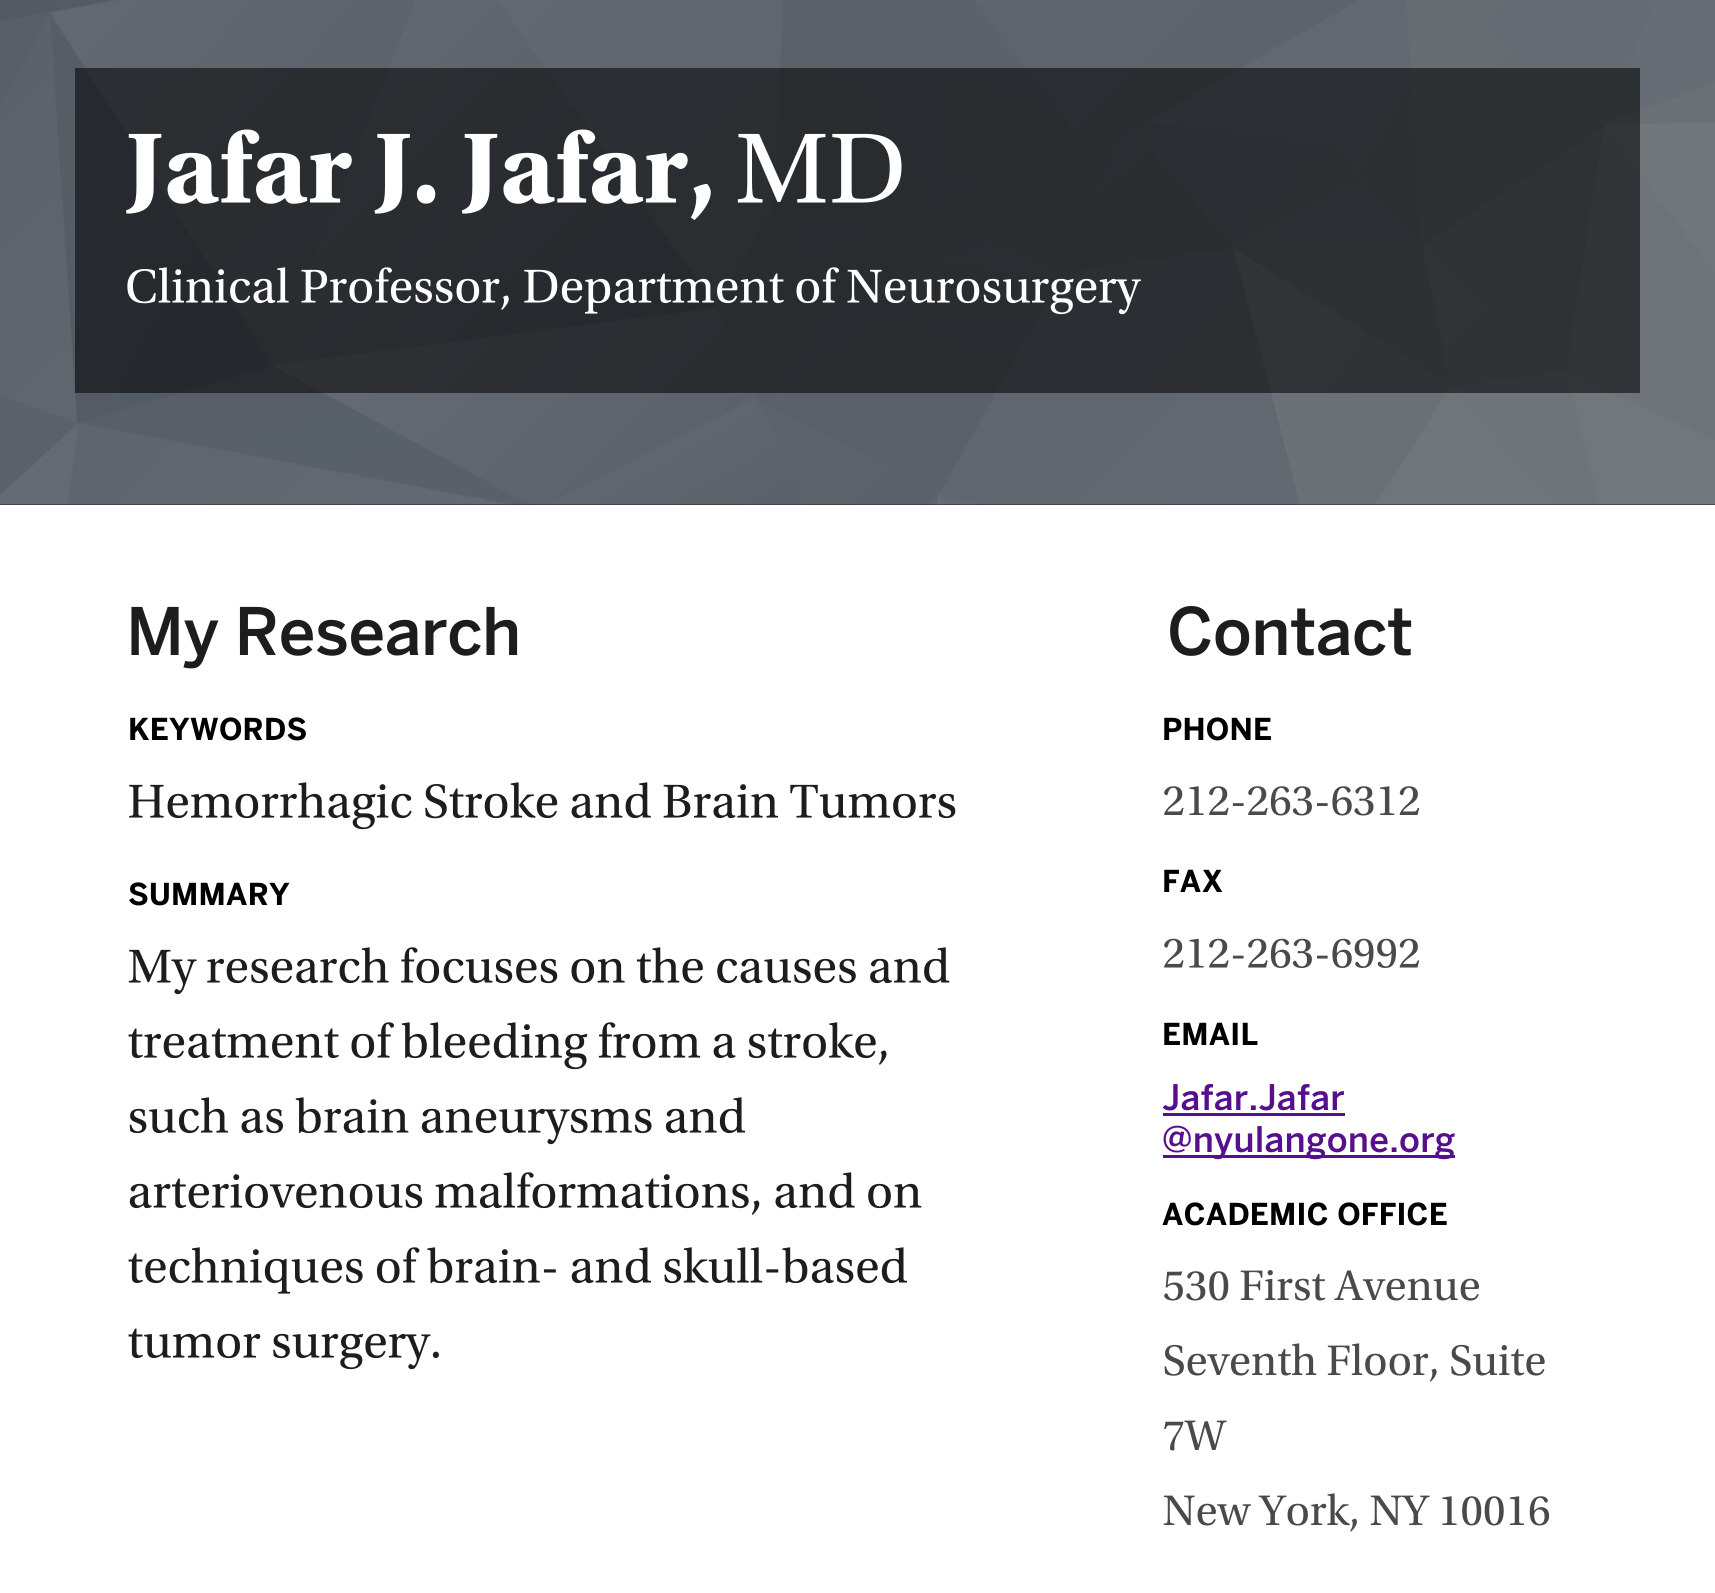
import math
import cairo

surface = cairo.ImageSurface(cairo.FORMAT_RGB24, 1715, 1593)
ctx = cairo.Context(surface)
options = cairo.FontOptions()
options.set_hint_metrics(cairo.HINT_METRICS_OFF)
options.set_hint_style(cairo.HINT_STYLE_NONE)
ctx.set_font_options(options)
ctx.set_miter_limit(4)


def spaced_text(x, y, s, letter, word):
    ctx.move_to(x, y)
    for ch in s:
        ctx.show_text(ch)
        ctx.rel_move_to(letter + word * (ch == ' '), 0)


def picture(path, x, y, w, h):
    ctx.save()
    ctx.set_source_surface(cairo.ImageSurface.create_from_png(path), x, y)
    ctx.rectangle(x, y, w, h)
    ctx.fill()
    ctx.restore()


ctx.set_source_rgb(1, 1, 1)
ctx.paint()
ctx.set_source_rgb(0.212, 0.239, 0.271)
ctx.rectangle(0, 0, 1715, 505)
ctx.fill()
picture("img1.png", 0, 0, 1715, 505)
ctx.set_source_rgba(0, 0, 0, 0.55)
ctx.rectangle(75, 68, 1565, 325)
ctx.fill()
picture("img2.png", 126, 129, 585, 92)
picture("img3.png", 737, 133, 165, 70)
picture("img4.png", 127, 267, 1014, 48)
ctx.select_font_face("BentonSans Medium")
ctx.set_font_size(65)
ctx.set_source_rgb(0.114, 0.114, 0.114)
spaced_text(126, 655, "My Research", -0.5, 0)
ctx.select_font_face("BentonSans", cairo.FONT_SLANT_NORMAL, cairo.FONT_WEIGHT_BOLD)
ctx.set_font_size(30)
ctx.set_source_rgb(0, 0, 0)
spaced_text(128, 740, "KEYWORDS", 0.25, 0)
picture("img5.png", 129, 782, 827, 48)
spaced_text(128, 905, "SUMMARY", 0.25, 0)
picture("img6.png", 128, 947, 822, 48)
picture("img7.png", 128, 1022, 759, 48)
picture("img8.png", 129, 1097, 617, 48)
picture("img9.png", 129, 1172, 793, 43)
picture("img10.png", 128, 1247, 779, 47)
picture("img11.png", 128, 1328, 311, 42)
ctx.select_font_face("BentonSans Medium")
ctx.set_font_size(65)
ctx.set_source_rgb(0.114, 0.114, 0.114)
spaced_text(1167, 655, "Contact", -0.5, 0)
ctx.select_font_face("BentonSans", cairo.FONT_SLANT_NORMAL, cairo.FONT_WEIGHT_BOLD)
ctx.set_font_size(30)
ctx.set_source_rgb(0, 0, 0)
spaced_text(1162, 740, "PHONE", 0.25, 0)
picture("img12.png", 1164, 786, 256, 30)
spaced_text(1162, 892, "FAX", 0.25, 0)
picture("img13.png", 1164, 938, 256, 30)
spaced_text(1162, 1045, "EMAIL", 0.25, 0)
ctx.select_font_face("BentonSans Medium")
ctx.set_font_size(35)
ctx.set_source_rgb(0.345, 0.059, 0.545)
spaced_text(1162, 1110, "Jafar.Jafar", 0.25, 0)
ctx.rectangle(1163, 1113, 182, 3)
ctx.fill()
ctx.rectangle(1163, 1155, 292, 3)
ctx.fill()
spaced_text(1162, 1152, "@nyulangone.org", 0.25, 0)
ctx.select_font_face("BentonSans", cairo.FONT_SLANT_NORMAL, cairo.FONT_WEIGHT_BOLD)
ctx.set_font_size(30)
ctx.set_source_rgb(0, 0, 0)
spaced_text(1162, 1225, "ACADEMIC OFFICE", 0.25, 0)
picture("img14.png", 1164, 1270, 315, 31)
picture("img15.png", 1164, 1343, 381, 39)
picture("img16.png", 1164, 1420, 63, 31)
picture("img17.png", 1163, 1493, 387, 39)
surface.write_to_png("page.png")
